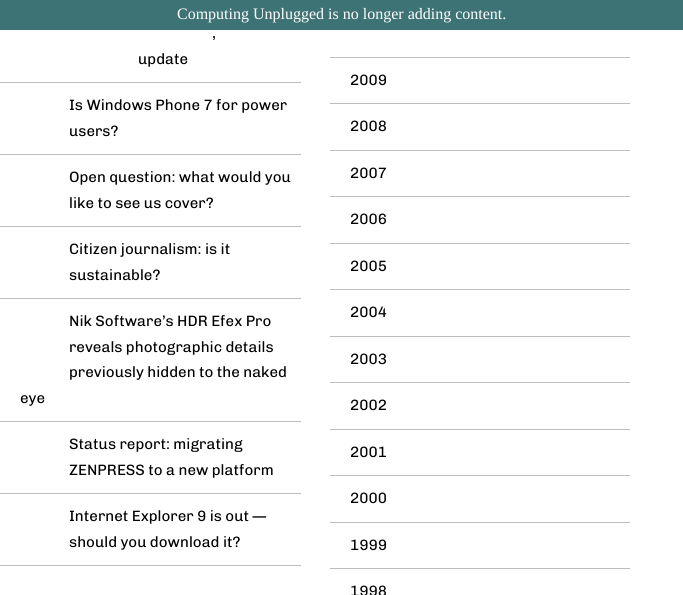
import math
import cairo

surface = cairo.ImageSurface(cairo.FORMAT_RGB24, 683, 595)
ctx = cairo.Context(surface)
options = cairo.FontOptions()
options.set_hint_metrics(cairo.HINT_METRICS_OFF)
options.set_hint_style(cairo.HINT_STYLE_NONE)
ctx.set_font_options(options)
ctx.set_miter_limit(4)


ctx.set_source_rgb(1, 1, 1)
ctx.paint()
ctx.set_source_rgb(0.243, 0.451, 0.459)
ctx.rectangle(0, 0, 683, 30)
ctx.fill()
ctx.select_font_face("Liberation Serif")
ctx.set_font_size(16)
ctx.set_source_rgb(1, 1, 1)
ctx.move_to(177, 19)
ctx.show_text("Computing Unplugged is no longer adding content.")
ctx.set_source_rgb(0.745, 0.745, 0.745)
ctx.rectangle(0, 82, 301, 1)
ctx.fill()
ctx.select_font_face("Chivo")
ctx.set_font_size(15)
ctx.set_source_rgb(0, 0, 0)
ctx.move_to(212, 38)
ctx.show_text(",")
ctx.move_to(138, 64)
ctx.show_text("update")
ctx.set_source_rgb(0.745, 0.745, 0.745)
ctx.rectangle(0, 154, 301, 1)
ctx.fill()
ctx.set_source_rgb(0, 0, 0)
ctx.move_to(69, 110)
ctx.show_text("Is Windows Phone 7 for power")
ctx.move_to(69, 136)
ctx.show_text("users?")
ctx.set_source_rgb(0.745, 0.745, 0.745)
ctx.rectangle(0, 226, 301, 1)
ctx.fill()
ctx.set_source_rgb(0, 0, 0)
ctx.move_to(69, 182)
ctx.show_text("Open question: what would you")
ctx.move_to(69, 208)
ctx.show_text("like to see us cover?")
ctx.set_source_rgb(0.745, 0.745, 0.745)
ctx.rectangle(0, 298, 301, 1)
ctx.fill()
ctx.set_source_rgb(0, 0, 0)
ctx.move_to(69, 254)
ctx.show_text("Citizen journalism: is it")
ctx.move_to(69, 280)
ctx.show_text("sustainable?")
ctx.set_source_rgb(0.745, 0.745, 0.745)
ctx.rectangle(0, 421, 301, 1)
ctx.fill()
ctx.set_source_rgb(0, 0, 0)
ctx.move_to(69, 326)
ctx.show_text("Nik Software’s HDR Efex Pro")
ctx.move_to(69, 352)
ctx.show_text("reveals photographic details")
ctx.move_to(69, 377)
ctx.show_text("previously hidden to the naked")
ctx.move_to(20, 403)
ctx.show_text("eye")
ctx.set_source_rgb(0.745, 0.745, 0.745)
ctx.rectangle(0, 493, 301, 1)
ctx.fill()
ctx.set_source_rgb(0, 0, 0)
ctx.move_to(69, 449)
ctx.show_text("Status report: migrating")
ctx.move_to(69, 475)
ctx.show_text("ZENPRESS to a new platform")
ctx.set_source_rgb(0.745, 0.745, 0.745)
ctx.rectangle(0, 565, 301, 1)
ctx.fill()
ctx.set_source_rgb(0, 0, 0)
ctx.move_to(69, 521)
ctx.show_text("Internet Explorer 9 is out —")
ctx.move_to(69, 547)
ctx.show_text("should you download it?")
ctx.set_source_rgb(0.745, 0.745, 0.745)
ctx.rectangle(330, 57, 300, 1)
ctx.fill()
ctx.rectangle(330, 103, 300, 1)
ctx.fill()
ctx.set_source_rgb(0, 0, 0)
ctx.move_to(350, 85)
ctx.show_text("2009")
ctx.set_source_rgb(0.745, 0.745, 0.745)
ctx.rectangle(330, 150, 300, 1)
ctx.fill()
ctx.set_source_rgb(0, 0, 0)
ctx.move_to(350, 131)
ctx.show_text("2008")
ctx.set_source_rgb(0.745, 0.745, 0.745)
ctx.rectangle(330, 196, 300, 1)
ctx.fill()
ctx.set_source_rgb(0, 0, 0)
ctx.move_to(350, 178)
ctx.show_text("2007")
ctx.set_source_rgb(0.745, 0.745, 0.745)
ctx.rectangle(330, 243, 300, 1)
ctx.fill()
ctx.set_source_rgb(0, 0, 0)
ctx.move_to(350, 224)
ctx.show_text("2006")
ctx.set_source_rgb(0.745, 0.745, 0.745)
ctx.rectangle(330, 289, 300, 1)
ctx.fill()
ctx.set_source_rgb(0, 0, 0)
ctx.move_to(350, 271)
ctx.show_text("2005")
ctx.set_source_rgb(0.745, 0.745, 0.745)
ctx.rectangle(330, 336, 300, 1)
ctx.fill()
ctx.set_source_rgb(0, 0, 0)
ctx.move_to(350, 317)
ctx.show_text("2004")
ctx.set_source_rgb(0.745, 0.745, 0.745)
ctx.rectangle(330, 382, 300, 1)
ctx.fill()
ctx.set_source_rgb(0, 0, 0)
ctx.move_to(350, 364)
ctx.show_text("2003")
ctx.set_source_rgb(0.745, 0.745, 0.745)
ctx.rectangle(330, 429, 300, 1)
ctx.fill()
ctx.set_source_rgb(0, 0, 0)
ctx.move_to(350, 410)
ctx.show_text("2002")
ctx.set_source_rgb(0.745, 0.745, 0.745)
ctx.rectangle(330, 475, 300, 1)
ctx.fill()
ctx.set_source_rgb(0, 0, 0)
ctx.move_to(350, 457)
ctx.show_text("2001")
ctx.set_source_rgb(0.745, 0.745, 0.745)
ctx.rectangle(330, 522, 300, 1)
ctx.fill()
ctx.set_source_rgb(0, 0, 0)
ctx.move_to(350, 503)
ctx.show_text("2000")
ctx.set_source_rgb(0.745, 0.745, 0.745)
ctx.rectangle(330, 568, 300, 1)
ctx.fill()
ctx.set_source_rgb(0, 0, 0)
ctx.move_to(350, 550)
ctx.show_text("1999")
ctx.move_to(350, 596)
ctx.show_text("1998")
surface.write_to_png("page.png")
